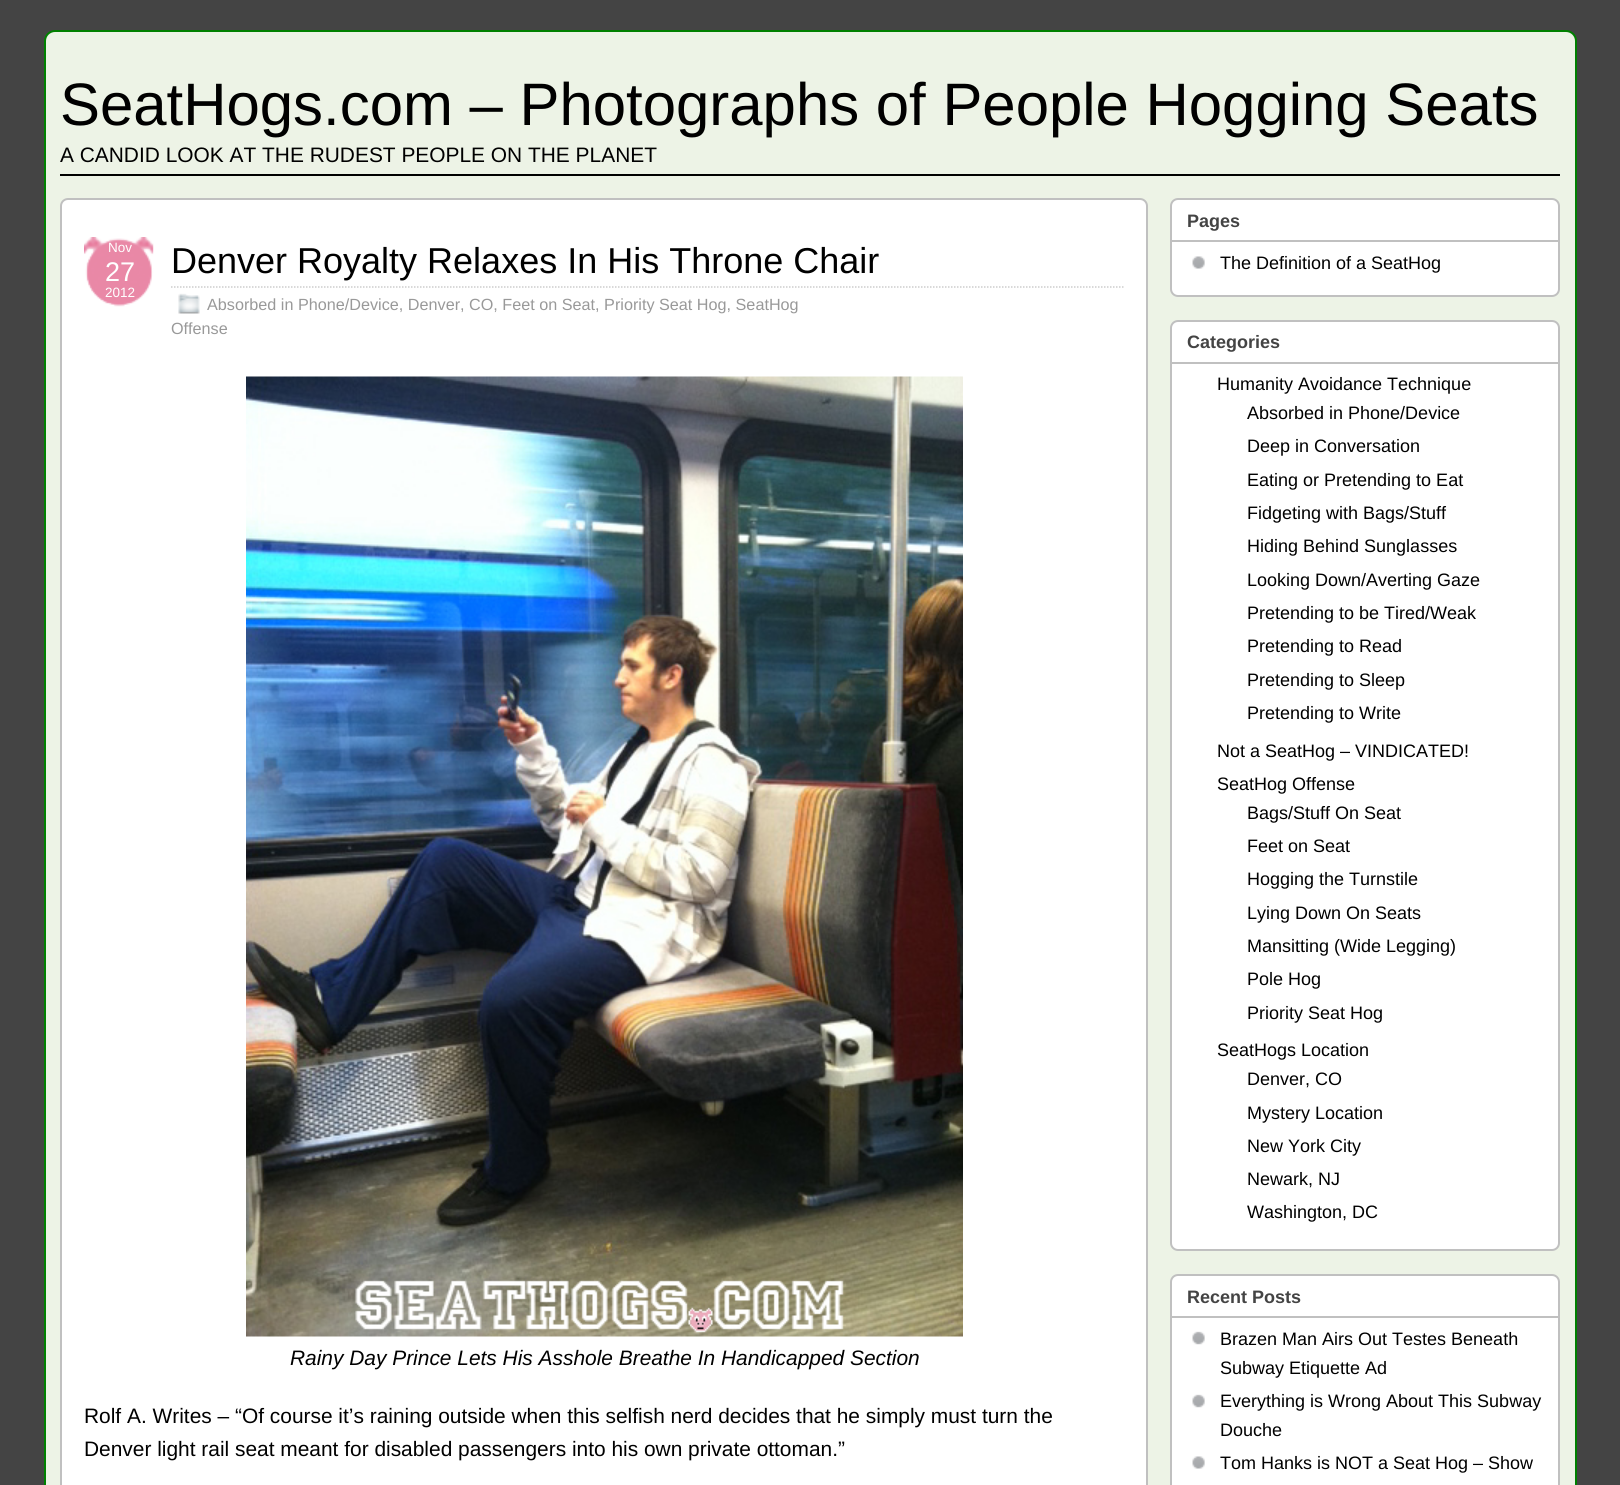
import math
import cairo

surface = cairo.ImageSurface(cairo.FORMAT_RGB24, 1620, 1485)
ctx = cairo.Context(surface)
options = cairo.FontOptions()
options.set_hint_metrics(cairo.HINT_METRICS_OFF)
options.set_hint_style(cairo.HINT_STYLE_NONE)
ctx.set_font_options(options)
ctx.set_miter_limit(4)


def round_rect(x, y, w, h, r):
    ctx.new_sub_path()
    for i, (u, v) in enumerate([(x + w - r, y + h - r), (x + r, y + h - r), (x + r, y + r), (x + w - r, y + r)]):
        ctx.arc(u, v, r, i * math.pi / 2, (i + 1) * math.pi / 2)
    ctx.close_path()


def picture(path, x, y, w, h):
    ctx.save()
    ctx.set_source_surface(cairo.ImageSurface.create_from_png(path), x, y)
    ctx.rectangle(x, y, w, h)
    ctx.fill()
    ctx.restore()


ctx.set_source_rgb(0.267, 0.267, 0.267)
ctx.paint()
ctx.set_source_rgb(0.929, 0.953, 0.902)
round_rect(45, 31, 1531, 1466, 10)
ctx.fill_preserve()
ctx.set_source_rgb(0, 0.502, 0)
ctx.stroke()
ctx.select_font_face("Liberation Sans")
ctx.set_font_size(59.9)
ctx.set_source_rgb(0, 0, 0)
ctx.move_to(60, 125)
ctx.show_text("SeatHogs.com – Photographs of People Hogging Seats")
ctx.set_font_size(20.9)
ctx.move_to(60, 162)
ctx.show_text("A CANDID LOOK AT THE RUDEST PEOPLE ON THE PLANET")
ctx.rectangle(60, 174, 1500, 2)
ctx.fill()
ctx.set_source_rgb(1, 1, 1)
round_rect(61, 199, 1086, 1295, 7)
ctx.fill_preserve()
ctx.set_source_rgb(0.753, 0.753, 0.753)
ctx.stroke()
picture("img1.png", 84, 237, 70, 70)
ctx.set_font_size(13.5)
ctx.set_source_rgb(1, 1, 1)
ctx.move_to(108, 252)
ctx.show_text("Nov")
ctx.set_font_size(27)
ctx.move_to(105, 281)
ctx.show_text("27")
ctx.set_font_size(13.5)
ctx.move_to(105, 297)
ctx.show_text("2012")
ctx.new_path()
ctx.move_to(171, 287)
ctx.line_to(1123.5, 287)
ctx.set_source_rgb(0.8, 0.8, 0.8)
ctx.set_line_width(1.5)
ctx.set_dash([1.5, 1.5])
ctx.stroke()
ctx.set_font_size(36)
ctx.set_source_rgb(0, 0, 0)
ctx.move_to(171, 273)
ctx.show_text("Denver Royalty Relaxes In His Throne Chair")
picture("img2.png", 178, 293, 22, 21)
ctx.set_font_size(16.2)
ctx.set_source_rgb(0.6, 0.6, 0.6)
ctx.move_to(207, 310)
ctx.show_text("Absorbed in Phone/Device, Denver, CO, Feet on Seat, Priority Seat Hog, SeatHog")
ctx.move_to(171, 334)
ctx.show_text("Offense")
picture("img3.png", 246, 376, 717, 961)
ctx.select_font_face("Liberation Sans", cairo.FONT_SLANT_ITALIC)
ctx.set_font_size(20.9)
ctx.set_source_rgb(0, 0, 0)
ctx.move_to(290, 1365)
ctx.show_text("Rainy Day Prince Lets His Asshole Breathe In Handicapped Section")
ctx.select_font_face("Liberation Sans")
ctx.move_to(84, 1423)
ctx.show_text("Rolf A. Writes – “Of course it’s raining outside when this selfish nerd decides that he simply must turn the")
ctx.move_to(84, 1456)
ctx.show_text("Denver light rail seat meant for disabled passengers into his own private ottoman.”")
ctx.set_source_rgb(1, 1, 1)
round_rect(1171, 199, 388, 97, 7)
ctx.fill_preserve()
ctx.set_source_rgb(0.753, 0.753, 0.753)
ctx.set_line_width(2)
ctx.set_dash([])
ctx.stroke()
ctx.rectangle(1172, 240, 387, 2)
ctx.fill()
ctx.select_font_face("Liberation Sans", cairo.FONT_SLANT_NORMAL, cairo.FONT_WEIGHT_BOLD)
ctx.set_font_size(18)
ctx.set_source_rgb(0.267, 0.267, 0.267)
ctx.move_to(1187, 227)
ctx.show_text("Pages")
picture("img4.png", 1192, 256, 13, 13)
ctx.select_font_face("Liberation Sans")
ctx.set_source_rgb(0, 0, 0)
ctx.move_to(1220, 269)
ctx.show_text("The Definition of a SeatHog")
ctx.set_source_rgb(1, 1, 1)
round_rect(1171, 321, 388, 929, 7)
ctx.fill_preserve()
ctx.set_source_rgb(0.753, 0.753, 0.753)
ctx.stroke()
ctx.rectangle(1172, 362, 387, 2)
ctx.fill()
ctx.select_font_face("Liberation Sans", cairo.FONT_SLANT_NORMAL, cairo.FONT_WEIGHT_BOLD)
ctx.set_source_rgb(0.267, 0.267, 0.267)
ctx.move_to(1187, 348)
ctx.show_text("Categories")
ctx.select_font_face("Liberation Sans")
ctx.set_source_rgb(0, 0, 0)
ctx.move_to(1217, 390)
ctx.show_text("Humanity Avoidance Technique")
ctx.move_to(1247, 419)
ctx.show_text("Absorbed in Phone/Device")
ctx.move_to(1247, 452)
ctx.show_text("Deep in Conversation")
ctx.move_to(1247, 486)
ctx.show_text("Eating or Pretending to Eat")
ctx.move_to(1247, 519)
ctx.show_text("Fidgeting with Bags/Stuff")
ctx.move_to(1247, 552)
ctx.show_text("Hiding Behind Sunglasses")
ctx.move_to(1247, 586)
ctx.show_text("Looking Down/Averting Gaze")
ctx.move_to(1247, 619)
ctx.show_text("Pretending to be Tired/Weak")
ctx.move_to(1247, 652)
ctx.show_text("Pretending to Read")
ctx.move_to(1247, 686)
ctx.show_text("Pretending to Sleep")
ctx.move_to(1247, 719)
ctx.show_text("Pretending to Write")
ctx.move_to(1217, 757)
ctx.show_text("Not a SeatHog – VINDICATED!")
ctx.move_to(1217, 790)
ctx.show_text("SeatHog Offense")
ctx.move_to(1247, 819)
ctx.show_text("Bags/Stuff On Seat")
ctx.move_to(1247, 852)
ctx.show_text("Feet on Seat")
ctx.move_to(1247, 885)
ctx.show_text("Hogging the Turnstile")
ctx.move_to(1247, 919)
ctx.show_text("Lying Down On Seats")
ctx.move_to(1247, 952)
ctx.show_text("Mansitting (Wide Legging)")
ctx.move_to(1247, 985)
ctx.show_text("Pole Hog")
ctx.move_to(1247, 1019)
ctx.show_text("Priority Seat Hog")
ctx.move_to(1217, 1056)
ctx.show_text("SeatHogs Location")
ctx.move_to(1247, 1085)
ctx.show_text("Denver, CO")
ctx.move_to(1247, 1119)
ctx.show_text("Mystery Location")
ctx.move_to(1247, 1152)
ctx.show_text("New York City")
ctx.move_to(1247, 1185)
ctx.show_text("Newark, NJ")
ctx.move_to(1247, 1218)
ctx.show_text("Washington, DC")
ctx.set_source_rgb(1, 1, 1)
round_rect(1171, 1275, 388, 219, 7)
ctx.fill_preserve()
ctx.set_source_rgb(0.753, 0.753, 0.753)
ctx.stroke()
ctx.rectangle(1172, 1316, 387, 2)
ctx.fill()
ctx.select_font_face("Liberation Sans", cairo.FONT_SLANT_NORMAL, cairo.FONT_WEIGHT_BOLD)
ctx.set_source_rgb(0.267, 0.267, 0.267)
ctx.move_to(1187, 1303)
ctx.show_text("Recent Posts")
picture("img5.png", 1192, 1331, 13, 14)
ctx.select_font_face("Liberation Sans")
ctx.set_source_rgb(0, 0, 0)
ctx.move_to(1220, 1345)
ctx.show_text("Brazen Man Airs Out Testes Beneath")
ctx.move_to(1220, 1374)
ctx.show_text("Subway Etiquette Ad")
picture("img5.png", 1192, 1394, 13, 14)
ctx.move_to(1220, 1407)
ctx.show_text("Everything is Wrong About This Subway")
ctx.move_to(1220, 1436)
ctx.show_text("Douche")
picture("img4.png", 1192, 1456, 13, 13)
ctx.move_to(1220, 1469)
ctx.show_text("Tom Hanks is NOT a Seat Hog – Show")
surface.write_to_png("page.png")
